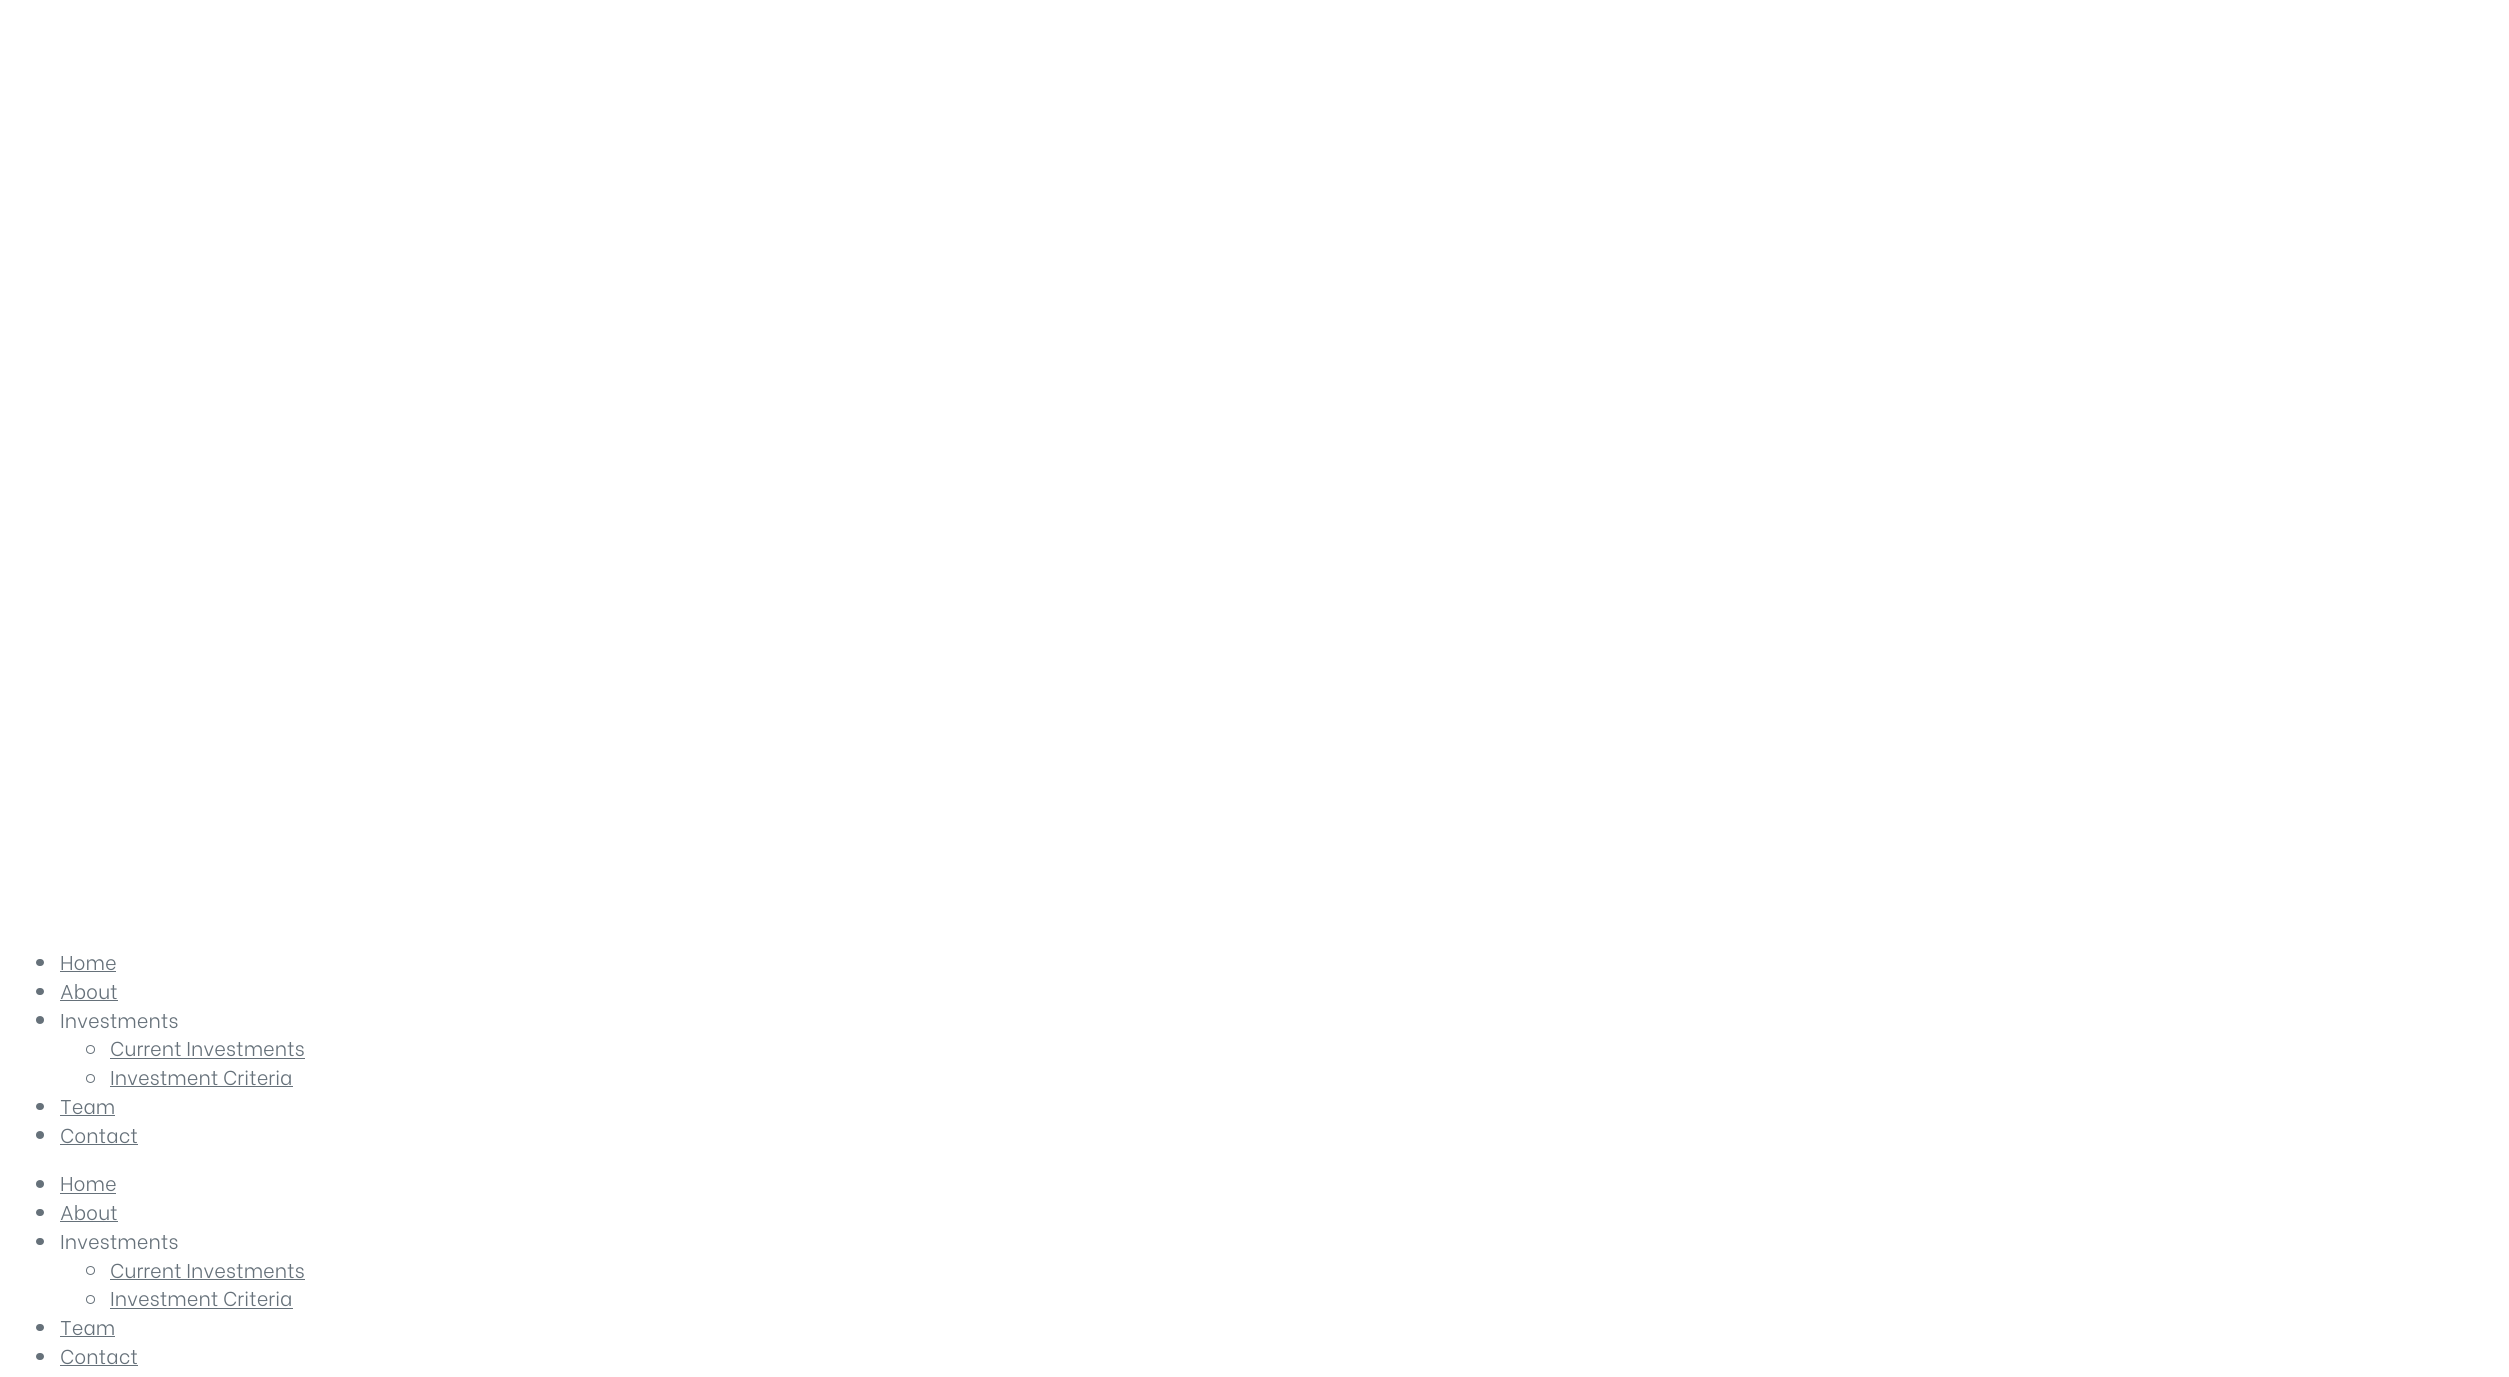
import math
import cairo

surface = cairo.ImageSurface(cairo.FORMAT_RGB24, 2509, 1377)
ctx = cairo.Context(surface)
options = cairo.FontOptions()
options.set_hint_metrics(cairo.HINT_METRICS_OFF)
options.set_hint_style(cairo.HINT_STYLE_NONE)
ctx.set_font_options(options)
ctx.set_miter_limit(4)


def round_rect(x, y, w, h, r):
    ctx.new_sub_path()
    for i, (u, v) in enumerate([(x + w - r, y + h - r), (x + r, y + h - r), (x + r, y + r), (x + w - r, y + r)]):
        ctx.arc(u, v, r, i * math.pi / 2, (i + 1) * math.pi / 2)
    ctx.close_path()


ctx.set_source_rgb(1, 1, 1)
ctx.paint()
ctx.set_source_rgb(0.4, 0.443, 0.478)
round_rect(36, 959, 8, 7, 3.5)
ctx.fill()
ctx.select_font_face("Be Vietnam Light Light")
ctx.set_font_size(20)
ctx.move_to(60, 970)
ctx.show_text("Home")
ctx.rectangle(60, 971, 56, 1)
ctx.fill()
round_rect(36, 988, 8, 7, 3.5)
ctx.fill()
ctx.move_to(60, 999)
ctx.show_text("About")
ctx.rectangle(60, 1000, 58, 1)
ctx.fill()
ctx.arc(40, 1020, 4, 0, 2 * math.pi)
ctx.fill()
ctx.move_to(60, 1028)
ctx.show_text("Investments")
ctx.new_path()
ctx.arc(90.5, 1049.5, 4, 0, 2 * math.pi)
ctx.set_line_width(1)
ctx.stroke()
ctx.move_to(110, 1056)
ctx.show_text("Current Investments")
ctx.rectangle(110, 1058, 195, 1)
ctx.fill()
ctx.arc(90.5, 1078.5, 4, 0, 2 * math.pi)
ctx.stroke()
ctx.move_to(110, 1085)
ctx.show_text("Investment Criteria")
ctx.rectangle(110, 1086, 183, 1)
ctx.fill()
round_rect(36, 1103, 8, 7, 3.5)
ctx.fill()
ctx.move_to(60, 1114)
ctx.show_text("Team")
ctx.rectangle(60, 1115, 55, 1)
ctx.fill()
ctx.arc(40, 1135, 4, 0, 2 * math.pi)
ctx.fill()
ctx.move_to(60, 1143)
ctx.show_text("Contact")
ctx.rectangle(60, 1144, 78, 1)
ctx.fill()
ctx.arc(40, 1184, 4, 0, 2 * math.pi)
ctx.fill()
ctx.move_to(60, 1191)
ctx.show_text("Home")
ctx.rectangle(60, 1193, 56, 1)
ctx.fill()
round_rect(36, 1209, 8, 7, 3.5)
ctx.fill()
ctx.move_to(60, 1220)
ctx.show_text("About")
ctx.rectangle(60, 1221, 58, 1)
ctx.fill()
round_rect(36, 1238, 8, 7, 3.5)
ctx.fill()
ctx.move_to(60, 1249)
ctx.show_text("Investments")
ctx.new_path()
ctx.arc(90.5, 1270.5, 4, 0, 2 * math.pi)
ctx.stroke()
ctx.move_to(110, 1278)
ctx.show_text("Current Investments")
ctx.rectangle(110, 1279, 195, 1)
ctx.fill()
ctx.arc(90.5, 1299.5, 4, 0, 2 * math.pi)
ctx.stroke()
ctx.move_to(110, 1306)
ctx.show_text("Investment Criteria")
ctx.rectangle(110, 1308, 183, 1)
ctx.fill()
round_rect(36, 1324, 8, 7, 3.5)
ctx.fill()
ctx.move_to(60, 1335)
ctx.show_text("Team")
ctx.rectangle(60, 1336, 55, 1)
ctx.fill()
round_rect(36, 1353, 8, 7, 3.5)
ctx.fill()
ctx.move_to(60, 1364)
ctx.show_text("Contact")
ctx.rectangle(60, 1365, 78, 1)
ctx.fill()
surface.write_to_png("page.png")
